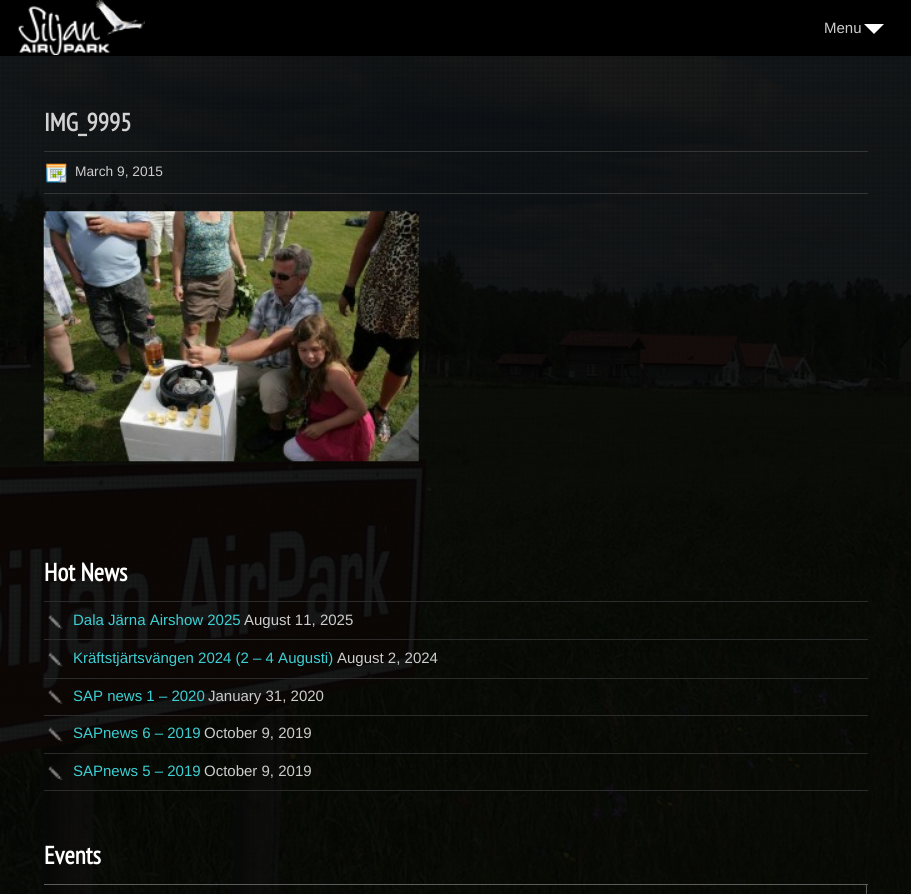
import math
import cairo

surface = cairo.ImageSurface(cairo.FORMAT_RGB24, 911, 894)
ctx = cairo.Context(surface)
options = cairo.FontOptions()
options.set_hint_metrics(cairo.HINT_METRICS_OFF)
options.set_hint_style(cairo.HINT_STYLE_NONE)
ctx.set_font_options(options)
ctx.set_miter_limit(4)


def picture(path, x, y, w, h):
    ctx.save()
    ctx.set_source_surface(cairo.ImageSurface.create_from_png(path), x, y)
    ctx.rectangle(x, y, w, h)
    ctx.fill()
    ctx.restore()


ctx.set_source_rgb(1, 1, 1)
ctx.paint()
ctx.set_source_rgb(0, 0, 0)
ctx.rectangle(0, 0, 911, 56)
ctx.fill()
picture("img1.png", 18, 0, 127, 55)
ctx.select_font_face("Liberation Sans")
ctx.set_font_size(15)
ctx.set_source_rgb(0.8, 0.8, 0.8)
ctx.move_to(824, 33)
ctx.show_text("Menu")
ctx.set_source_rgb(1, 1, 1)
ctx.new_path()
ctx.move_to(864, 24)
ctx.line_to(884, 24)
ctx.line_to(874, 34)
ctx.close_path()
ctx.fill()
picture("img2.png", 0, 56, 911, 838)
picture("img3.png", 0, 56, 911, 838)
ctx.select_font_face("PT Sans Narrow", cairo.FONT_SLANT_NORMAL, cairo.FONT_WEIGHT_BOLD)
ctx.set_font_size(25)
ctx.set_source_rgb(0.824, 0.824, 0.824)
ctx.move_to(44, 131)
ctx.show_text("IMG_9995")
ctx.set_source_rgb(0.204, 0.204, 0.204)
ctx.rectangle(44, 151, 824, 1)
ctx.fill()
ctx.rectangle(44, 193, 824, 1)
ctx.fill()
picture("img4.png", 46, 163, 21, 20)
ctx.select_font_face("Liberation Sans")
ctx.set_font_size(13.75)
ctx.set_source_rgb(0.8, 0.8, 0.8)
ctx.move_to(75, 176)
ctx.show_text("March 9, 2015")
picture("img5.png", 43, 211, 376, 251)
ctx.select_font_face("PT Sans Narrow", cairo.FONT_SLANT_NORMAL, cairo.FONT_WEIGHT_BOLD)
ctx.set_font_size(25)
ctx.set_source_rgb(1, 1, 1)
ctx.move_to(44, 581)
ctx.show_text("Hot News")
picture("img6.png", 48, 615, 15, 14)
ctx.set_source_rgb(0.169, 0.169, 0.169)
ctx.rectangle(44, 601, 824, 1)
ctx.fill()
ctx.rectangle(44, 639, 824, 1)
ctx.fill()
ctx.select_font_face("Liberation Sans")
ctx.set_font_size(15)
ctx.set_source_rgb(0.235, 0.812, 0.827)
ctx.move_to(73, 625)
ctx.show_text("Dala Järna Airshow 2025")
ctx.set_source_rgb(0.8, 0.8, 0.8)
ctx.move_to(244, 625)
ctx.show_text("August 11, 2025")
picture("img7.png", 48, 652, 15, 15)
ctx.set_source_rgb(0.169, 0.169, 0.169)
ctx.rectangle(44, 678, 824, 1)
ctx.fill()
ctx.set_source_rgb(0.235, 0.812, 0.827)
ctx.move_to(73, 663)
ctx.show_text("Kräftstjärtsvängen 2024 (2 – 4 Augusti)")
ctx.set_source_rgb(0.8, 0.8, 0.8)
ctx.move_to(337, 663)
ctx.show_text("August 2, 2024")
picture("img8.png", 48, 690, 15, 14)
ctx.set_source_rgb(0.169, 0.169, 0.169)
ctx.rectangle(44, 715, 824, 1)
ctx.fill()
ctx.set_source_rgb(0.235, 0.812, 0.827)
ctx.move_to(73, 701)
ctx.show_text("SAP news 1 – 2020")
ctx.set_source_rgb(0.8, 0.8, 0.8)
ctx.move_to(208, 701)
ctx.show_text("January 31, 2020")
picture("img9.png", 48, 727, 15, 15)
ctx.set_source_rgb(0.169, 0.169, 0.169)
ctx.rectangle(44, 753, 824, 1)
ctx.fill()
ctx.set_source_rgb(0.235, 0.812, 0.827)
ctx.move_to(73, 738)
ctx.show_text("SAPnews 6 – 2019")
ctx.set_source_rgb(0.8, 0.8, 0.8)
ctx.move_to(204, 738)
ctx.show_text("October 9, 2019")
picture("img10.png", 48, 766, 15, 14)
ctx.set_source_rgb(0.169, 0.169, 0.169)
ctx.rectangle(44, 790, 824, 1)
ctx.fill()
ctx.set_source_rgb(0.235, 0.812, 0.827)
ctx.move_to(73, 776)
ctx.show_text("SAPnews 5 – 2019")
ctx.set_source_rgb(0.8, 0.8, 0.8)
ctx.move_to(204, 776)
ctx.show_text("October 9, 2019")
ctx.select_font_face("PT Sans Narrow", cairo.FONT_SLANT_NORMAL, cairo.FONT_WEIGHT_BOLD)
ctx.set_font_size(25)
ctx.set_source_rgb(1, 1, 1)
ctx.move_to(44, 864)
ctx.show_text("Events")
ctx.set_source_rgb(0.361, 0.361, 0.361)
ctx.rectangle(44, 884, 824, 1)
ctx.fill()
ctx.rectangle(866, 884, 1, 10)
ctx.fill()
surface.write_to_png("page.png")
